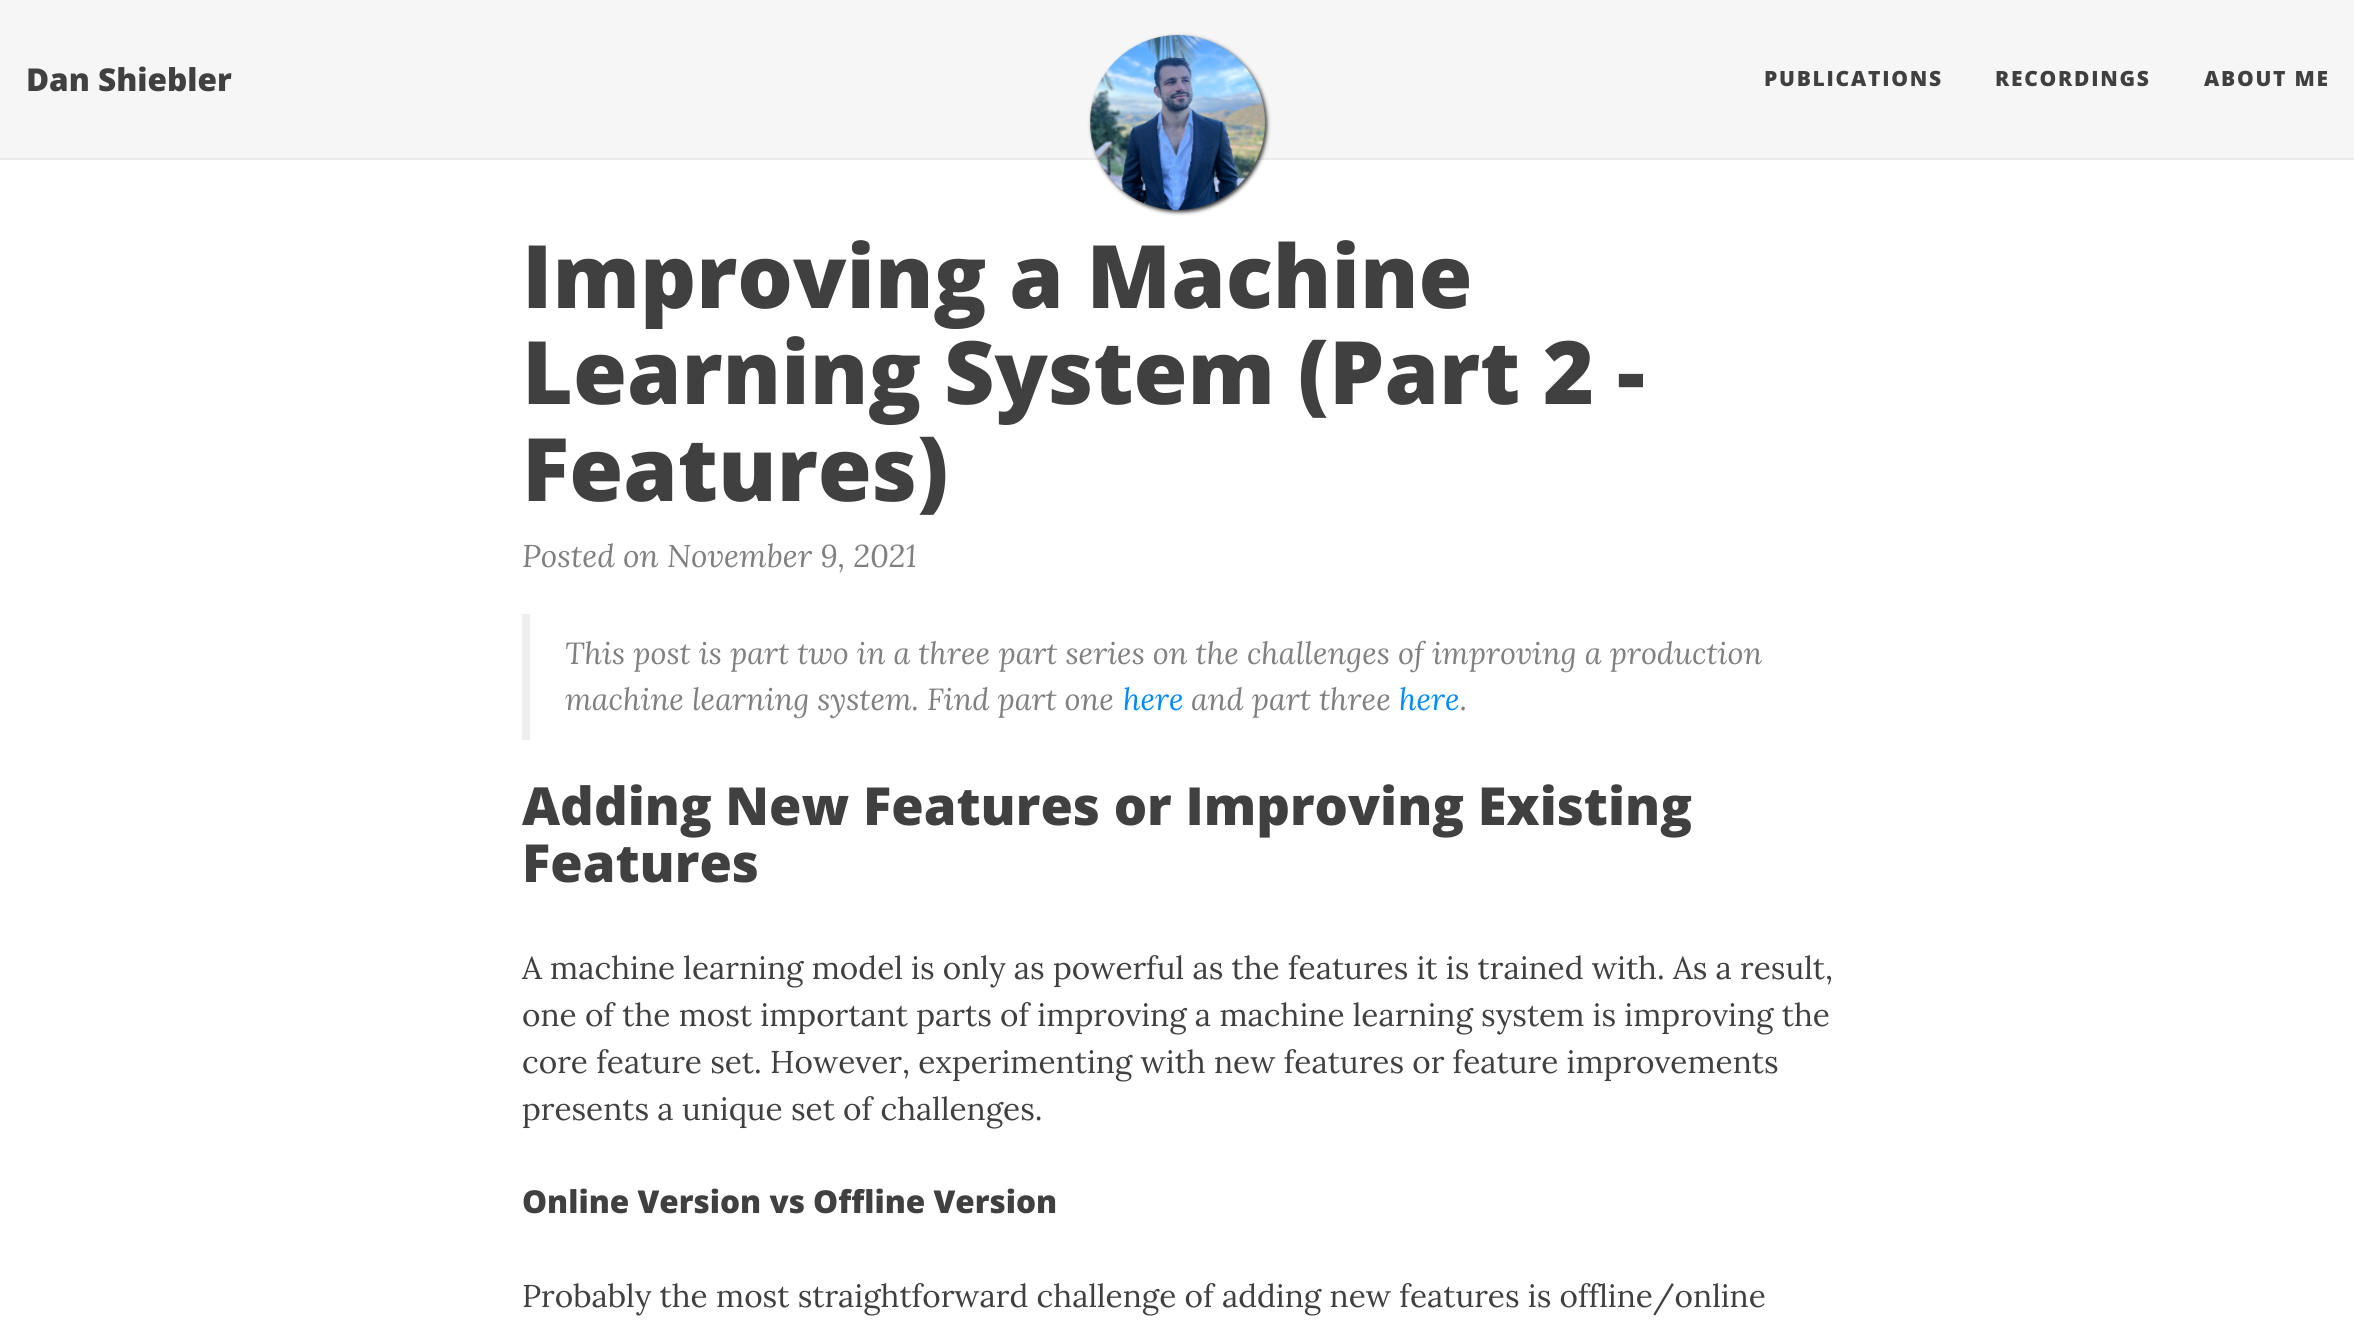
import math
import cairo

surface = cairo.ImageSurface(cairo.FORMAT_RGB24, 2354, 1322)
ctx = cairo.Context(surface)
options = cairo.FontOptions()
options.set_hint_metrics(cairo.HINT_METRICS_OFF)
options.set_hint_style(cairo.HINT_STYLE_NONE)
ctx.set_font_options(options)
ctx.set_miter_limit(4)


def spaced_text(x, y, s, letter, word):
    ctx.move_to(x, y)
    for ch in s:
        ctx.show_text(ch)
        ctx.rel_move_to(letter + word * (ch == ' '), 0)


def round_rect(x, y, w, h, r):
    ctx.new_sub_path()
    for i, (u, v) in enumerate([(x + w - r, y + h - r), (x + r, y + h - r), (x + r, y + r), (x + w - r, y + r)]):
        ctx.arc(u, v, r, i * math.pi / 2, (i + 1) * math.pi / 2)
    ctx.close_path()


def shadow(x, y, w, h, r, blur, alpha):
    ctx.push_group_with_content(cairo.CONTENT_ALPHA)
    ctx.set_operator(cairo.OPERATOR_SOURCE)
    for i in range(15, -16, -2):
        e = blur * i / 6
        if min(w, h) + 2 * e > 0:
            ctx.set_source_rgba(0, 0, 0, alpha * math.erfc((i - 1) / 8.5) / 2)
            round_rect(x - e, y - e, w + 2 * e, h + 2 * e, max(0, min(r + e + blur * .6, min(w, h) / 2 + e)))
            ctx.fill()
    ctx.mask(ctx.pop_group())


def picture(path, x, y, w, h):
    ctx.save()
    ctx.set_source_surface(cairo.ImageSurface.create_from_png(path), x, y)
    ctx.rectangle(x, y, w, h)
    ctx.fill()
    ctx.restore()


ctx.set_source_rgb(1, 1, 1)
ctx.paint()
ctx.set_source_rgb(0.961, 0.961, 0.961)
ctx.rectangle(0, 0, 2354, 158)
ctx.fill()
ctx.set_source_rgb(0.918, 0.918, 0.918)
ctx.rectangle(0, 158, 2354, 2)
ctx.fill()
ctx.select_font_face("Open Sans ExtraBold")
ctx.set_font_size(31.5)
ctx.set_source_rgb(0.251, 0.251, 0.251)
ctx.move_to(26, 91)
ctx.show_text("Dan Shiebler")
ctx.set_source_rgb(0, 0, 0)
shadow(1092, 37, 175, 175, 87.5, 2, 0.8)
picture("img1.png", 1090, 35, 176, 175)
ctx.set_font_size(21)
ctx.set_source_rgb(0.251, 0.251, 0.251)
spaced_text(1764, 86, "PUBLICATIONS", 1.75, 0)
spaced_text(1995, 86, "RECORDINGS", 1.75, 0)
spaced_text(2204, 86, "ABOUT ME", 1.75, 0)
ctx.set_font_size(87.5)
ctx.move_to(522, 308)
ctx.show_text("Improving a Machine")
ctx.move_to(522, 404)
ctx.show_text("Learning System (Part 2 -")
ctx.move_to(522, 501)
ctx.show_text("Features)")
ctx.select_font_face("Lora", cairo.FONT_SLANT_ITALIC)
ctx.set_font_size(31.5)
ctx.set_source_rgb(0.502, 0.502, 0.502)
ctx.move_to(522, 567)
ctx.show_text("Posted on November 9, 2021")
ctx.set_source_rgb(0.933, 0.933, 0.933)
ctx.rectangle(522, 614, 8, 126)
ctx.fill()
ctx.set_font_size(30.6)
ctx.set_source_rgb(0.502, 0.502, 0.502)
ctx.move_to(565, 664)
ctx.show_text("This post is part two in a three part series on the challenges of improving a production")
ctx.move_to(565, 710)
ctx.show_text("machine learning system. Find part one")
ctx.set_source_rgb(0, 0.541, 1)
ctx.move_to(1123, 710)
ctx.show_text("here")
ctx.set_source_rgb(0.502, 0.502, 0.502)
ctx.move_to(1191, 710)
ctx.show_text("and part three")
ctx.set_source_rgb(0, 0.541, 1)
ctx.move_to(1399, 710)
ctx.show_text("here")
ctx.set_source_rgb(0.502, 0.502, 0.502)
ctx.move_to(1460, 710)
ctx.show_text(".")
ctx.select_font_face("Open Sans ExtraBold")
ctx.set_font_size(52.5)
ctx.set_source_rgb(0.251, 0.251, 0.251)
ctx.move_to(522, 825)
ctx.show_text("Adding New Features or Improving Existing")
ctx.move_to(522, 882)
ctx.show_text("Features")
ctx.select_font_face("Lora")
ctx.set_font_size(31.5)
ctx.move_to(522, 979)
ctx.show_text("A machine learning model is only as powerful as the features it is trained with. As a result,")
ctx.move_to(522, 1026)
ctx.show_text("one of the most important parts of improving a machine learning system is improving the")
ctx.move_to(522, 1073)
ctx.show_text("core feature set. However, experimenting with new features or feature improvements")
ctx.move_to(522, 1120)
ctx.show_text("presents a unique set of challenges.")
ctx.select_font_face("Open Sans ExtraBold")
ctx.move_to(522, 1213)
ctx.show_text("Online Version vs Offline Version")
ctx.select_font_face("Lora")
ctx.move_to(522, 1307)
ctx.show_text("Probably the most straightforward challenge of adding new features is offline/online")
surface.write_to_png("page.png")
